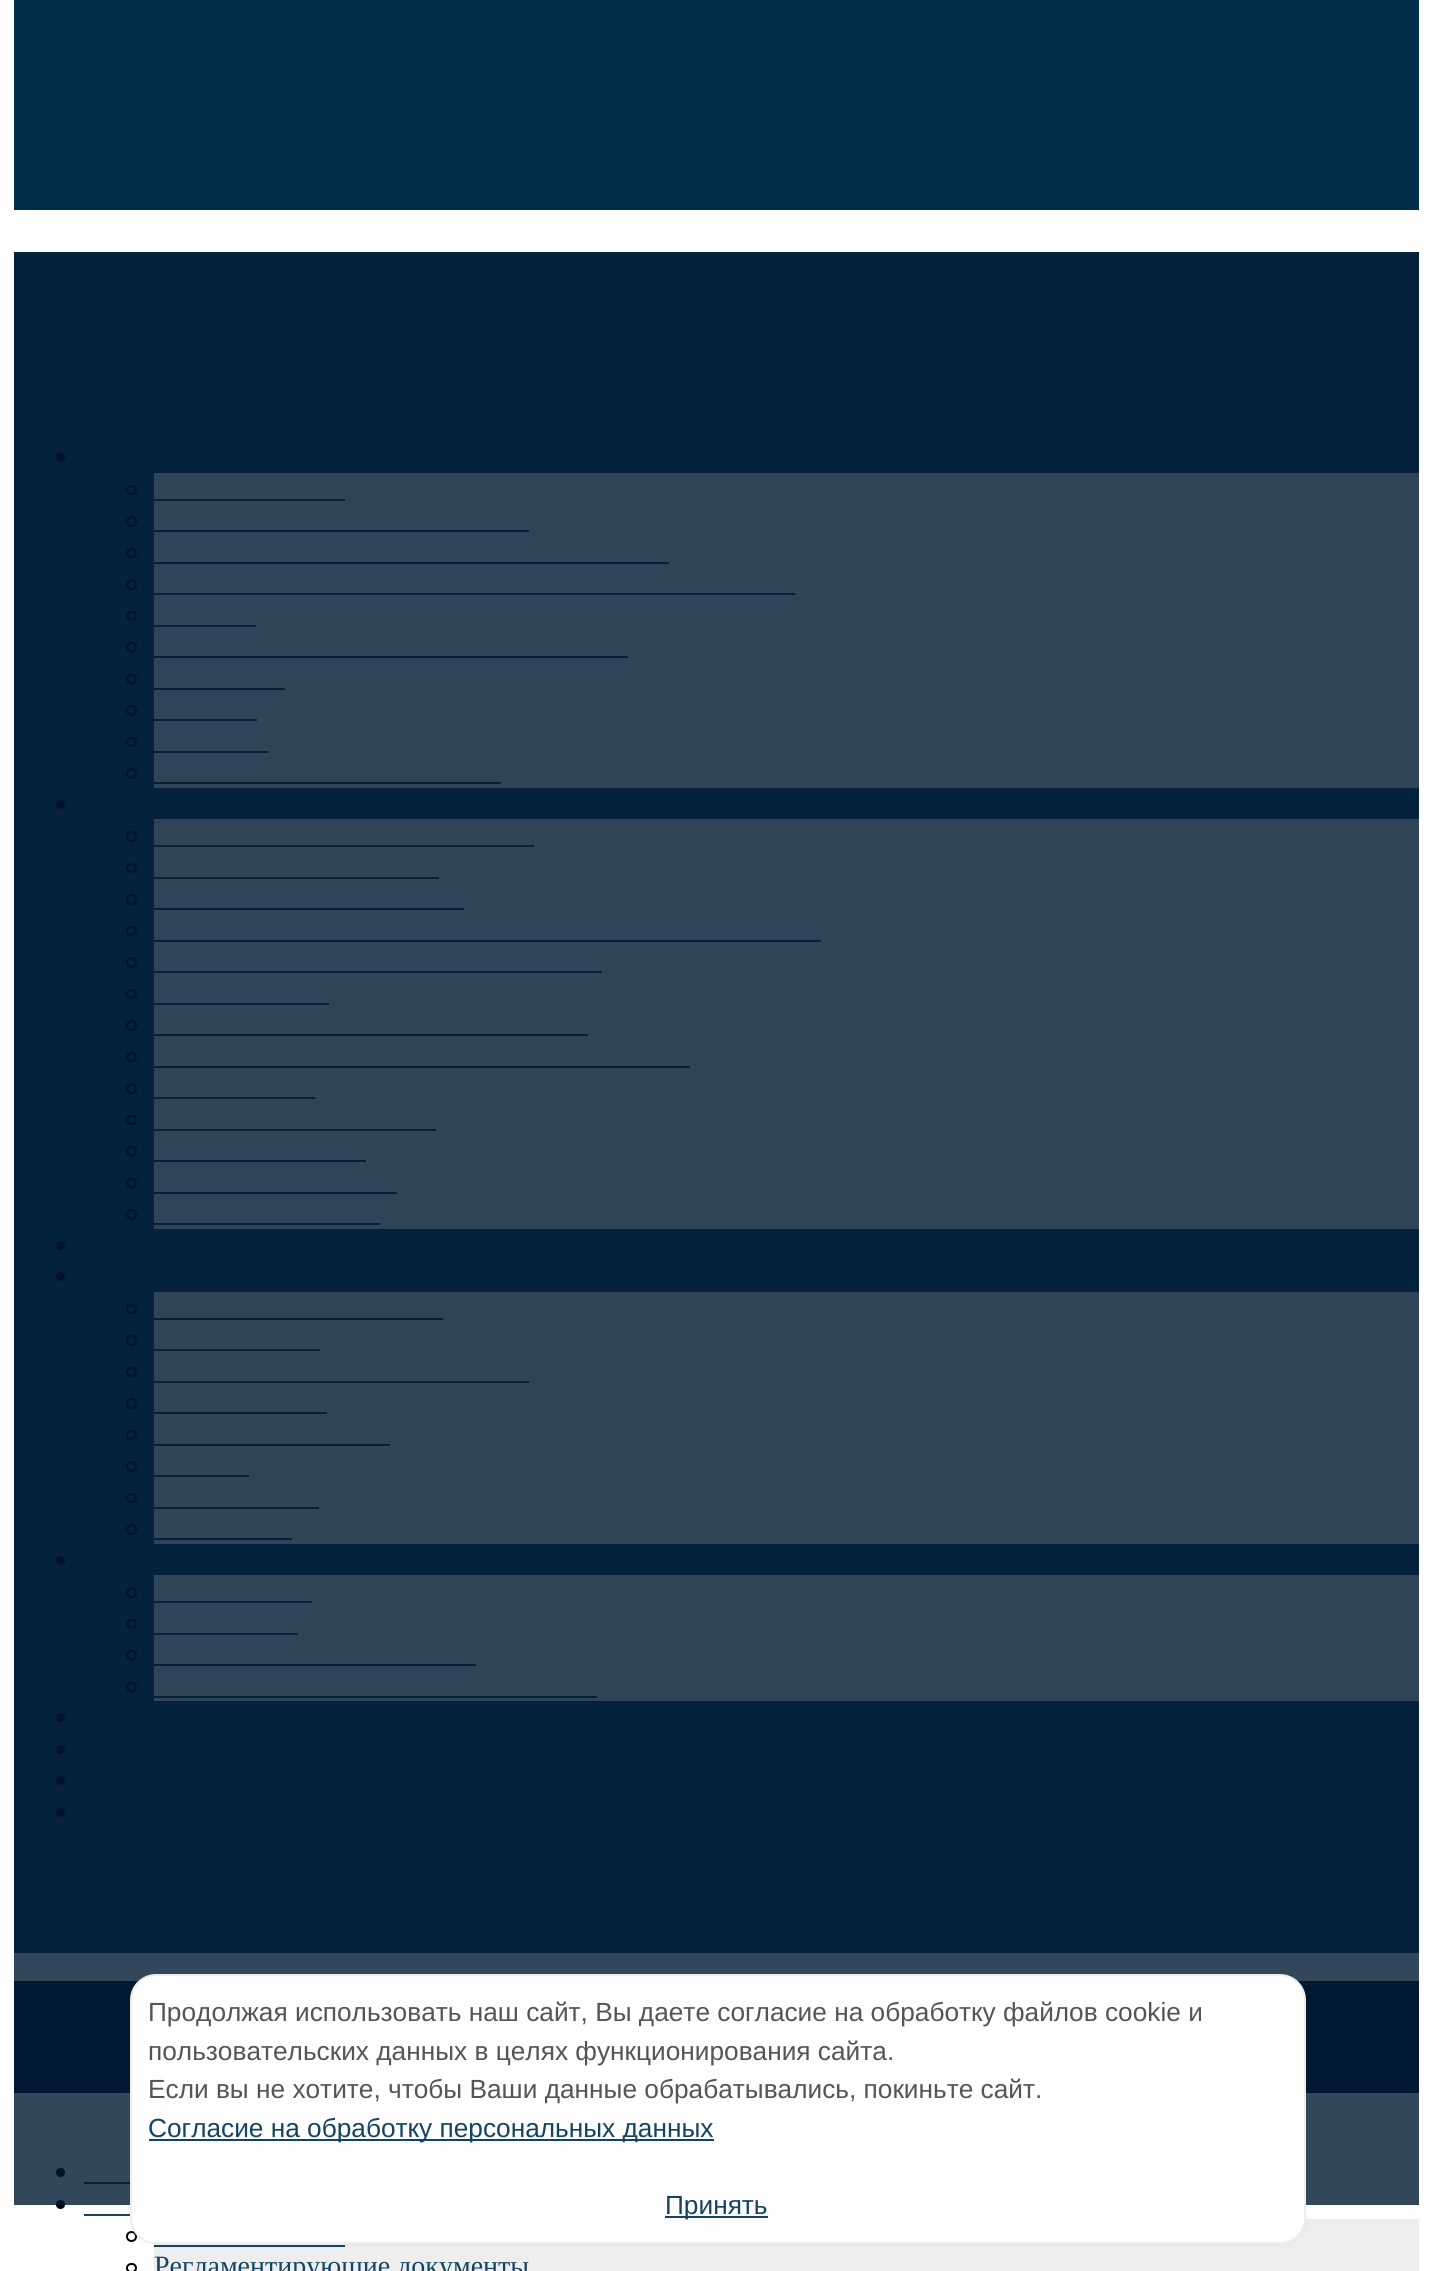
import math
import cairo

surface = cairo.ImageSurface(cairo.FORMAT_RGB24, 1433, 2271)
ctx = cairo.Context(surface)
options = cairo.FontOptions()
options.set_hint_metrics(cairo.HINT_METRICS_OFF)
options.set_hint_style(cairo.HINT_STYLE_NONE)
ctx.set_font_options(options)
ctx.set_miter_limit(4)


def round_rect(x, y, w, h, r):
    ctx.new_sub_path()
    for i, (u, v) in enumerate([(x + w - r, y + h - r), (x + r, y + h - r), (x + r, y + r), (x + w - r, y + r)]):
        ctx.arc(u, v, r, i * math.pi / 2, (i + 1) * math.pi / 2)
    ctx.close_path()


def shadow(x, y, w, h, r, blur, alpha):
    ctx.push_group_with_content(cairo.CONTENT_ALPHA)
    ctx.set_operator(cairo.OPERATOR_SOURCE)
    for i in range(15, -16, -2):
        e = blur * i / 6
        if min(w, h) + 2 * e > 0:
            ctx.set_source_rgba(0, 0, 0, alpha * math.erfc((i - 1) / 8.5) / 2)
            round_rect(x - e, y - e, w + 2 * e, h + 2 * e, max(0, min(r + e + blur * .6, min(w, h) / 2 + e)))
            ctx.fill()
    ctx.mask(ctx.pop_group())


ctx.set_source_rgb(1, 1, 1)
ctx.paint()
ctx.set_source_rgb(0.078, 0.271, 0.388)
ctx.rectangle(14, 252, 1405, 1701)
ctx.fill()
ctx.set_source_rgb(0, 0, 0)
ctx.arc(60.5, 457.5, 4.5, 0, 2 * math.pi)
ctx.fill()
ctx.set_source_rgb(0.933, 0.933, 0.933)
ctx.rectangle(154, 473, 1265, 315)
ctx.fill()
round_rect(127, 486, 9, 8, 4)
ctx.set_source_rgb(0, 0, 0)
ctx.stroke()
ctx.set_source_rgb(0.078, 0.271, 0.388)
ctx.rectangle(154, 499, 191, 2)
ctx.fill()
ctx.arc(131.5, 521.5, 4.5, 0, 2 * math.pi)
ctx.set_source_rgb(0, 0, 0)
ctx.stroke()
ctx.set_source_rgb(0.078, 0.271, 0.388)
ctx.rectangle(154, 530, 375, 2)
ctx.fill()
round_rect(127, 549, 9, 8, 4)
ctx.set_source_rgb(0, 0, 0)
ctx.stroke()
ctx.set_source_rgb(0.078, 0.271, 0.388)
ctx.rectangle(154, 562, 515, 2)
ctx.fill()
ctx.arc(131.5, 584.5, 4.5, 0, 2 * math.pi)
ctx.set_source_rgb(0, 0, 0)
ctx.stroke()
ctx.set_source_rgb(0.078, 0.271, 0.388)
ctx.rectangle(154, 593, 641, 2)
ctx.fill()
round_rect(127, 612, 9, 8, 4)
ctx.set_source_rgb(0, 0, 0)
ctx.stroke()
ctx.set_source_rgb(0.078, 0.271, 0.388)
ctx.rectangle(154, 625, 102, 2)
ctx.fill()
ctx.arc(131.5, 647.5, 4.5, 0, 2 * math.pi)
ctx.set_source_rgb(0, 0, 0)
ctx.stroke()
ctx.set_source_rgb(0.078, 0.271, 0.388)
ctx.rectangle(154, 656, 474, 2)
ctx.fill()
round_rect(127, 675, 9, 8, 4)
ctx.set_source_rgb(0, 0, 0)
ctx.stroke()
ctx.set_source_rgb(0.078, 0.271, 0.388)
ctx.rectangle(154, 688, 131, 2)
ctx.fill()
ctx.arc(131.5, 710.5, 4.5, 0, 2 * math.pi)
ctx.set_source_rgb(0, 0, 0)
ctx.stroke()
ctx.set_source_rgb(0.078, 0.271, 0.388)
ctx.rectangle(154, 719, 103, 2)
ctx.fill()
round_rect(127, 738, 9, 8, 4)
ctx.set_source_rgb(0, 0, 0)
ctx.stroke()
ctx.set_source_rgb(0.078, 0.271, 0.388)
ctx.rectangle(154, 751, 114, 2)
ctx.fill()
ctx.arc(131.5, 773.5, 4.5, 0, 2 * math.pi)
ctx.set_source_rgb(0, 0, 0)
ctx.stroke()
ctx.set_source_rgb(0.078, 0.271, 0.388)
ctx.rectangle(154, 782, 347, 2)
ctx.fill()
ctx.set_source_rgb(0, 0, 0)
ctx.arc(60.5, 804.5, 4.5, 0, 2 * math.pi)
ctx.fill()
ctx.set_source_rgb(0.933, 0.933, 0.933)
ctx.rectangle(154, 819, 1265, 410)
ctx.fill()
ctx.arc(131.5, 836.5, 4.5, 0, 2 * math.pi)
ctx.set_source_rgb(0, 0, 0)
ctx.stroke()
ctx.set_source_rgb(0.078, 0.271, 0.388)
ctx.rectangle(154, 845, 380, 2)
ctx.fill()
round_rect(127, 864, 9, 8, 4)
ctx.set_source_rgb(0, 0, 0)
ctx.stroke()
ctx.set_source_rgb(0.078, 0.271, 0.388)
ctx.rectangle(154, 877, 285, 2)
ctx.fill()
ctx.arc(131.5, 899.5, 4.5, 0, 2 * math.pi)
ctx.set_source_rgb(0, 0, 0)
ctx.stroke()
ctx.set_source_rgb(0.078, 0.271, 0.388)
ctx.rectangle(154, 908, 310, 2)
ctx.fill()
round_rect(127, 927, 9, 8, 4)
ctx.set_source_rgb(0, 0, 0)
ctx.stroke()
ctx.set_source_rgb(0.078, 0.271, 0.388)
ctx.rectangle(154, 940, 667, 2)
ctx.fill()
ctx.arc(131.5, 962.5, 4.5, 0, 2 * math.pi)
ctx.set_source_rgb(0, 0, 0)
ctx.stroke()
ctx.set_source_rgb(0.078, 0.271, 0.388)
ctx.rectangle(154, 971, 448, 2)
ctx.fill()
round_rect(127, 990, 9, 8, 4)
ctx.set_source_rgb(0, 0, 0)
ctx.stroke()
ctx.set_source_rgb(0.078, 0.271, 0.388)
ctx.rectangle(154, 1003, 175, 2)
ctx.fill()
ctx.arc(131.5, 1025.5, 4.5, 0, 2 * math.pi)
ctx.set_source_rgb(0, 0, 0)
ctx.stroke()
ctx.set_source_rgb(0.078, 0.271, 0.388)
ctx.rectangle(154, 1034, 434, 2)
ctx.fill()
round_rect(127, 1053, 9, 8, 4)
ctx.set_source_rgb(0, 0, 0)
ctx.stroke()
ctx.set_source_rgb(0.078, 0.271, 0.388)
ctx.rectangle(154, 1066, 536, 2)
ctx.fill()
ctx.arc(131.5, 1088.5, 4.5, 0, 2 * math.pi)
ctx.set_source_rgb(0, 0, 0)
ctx.stroke()
ctx.set_source_rgb(0.078, 0.271, 0.388)
ctx.rectangle(154, 1097, 161, 2)
ctx.fill()
round_rect(127, 1116, 9, 8, 4)
ctx.set_source_rgb(0, 0, 0)
ctx.stroke()
ctx.set_source_rgb(0.078, 0.271, 0.388)
ctx.rectangle(154, 1129, 282, 2)
ctx.fill()
ctx.arc(131.5, 1151.5, 4.5, 0, 2 * math.pi)
ctx.set_source_rgb(0, 0, 0)
ctx.stroke()
ctx.set_source_rgb(0.078, 0.271, 0.388)
ctx.rectangle(154, 1160, 212, 2)
ctx.fill()
round_rect(127, 1179, 9, 8, 4)
ctx.set_source_rgb(0, 0, 0)
ctx.stroke()
ctx.set_source_rgb(0.078, 0.271, 0.388)
ctx.rectangle(154, 1192, 243, 2)
ctx.fill()
ctx.arc(131.5, 1214.5, 4.5, 0, 2 * math.pi)
ctx.set_source_rgb(0, 0, 0)
ctx.stroke()
ctx.set_source_rgb(0.078, 0.271, 0.388)
ctx.rectangle(154, 1223, 226, 2)
ctx.fill()
ctx.set_source_rgb(0, 0, 0)
ctx.arc(60.5, 1245.5, 4.5, 0, 2 * math.pi)
ctx.fill()
ctx.arc(60.5, 1276.5, 4.5, 0, 2 * math.pi)
ctx.fill()
ctx.set_source_rgb(0.933, 0.933, 0.933)
ctx.rectangle(154, 1292, 1265, 252)
ctx.fill()
round_rect(127, 1305, 9, 8, 4)
ctx.set_source_rgb(0, 0, 0)
ctx.stroke()
ctx.set_source_rgb(0.078, 0.271, 0.388)
ctx.rectangle(154, 1318, 289, 2)
ctx.fill()
ctx.arc(131.5, 1340.5, 4.5, 0, 2 * math.pi)
ctx.set_source_rgb(0, 0, 0)
ctx.stroke()
ctx.set_source_rgb(0.078, 0.271, 0.388)
ctx.rectangle(154, 1349, 166, 2)
ctx.fill()
round_rect(127, 1368, 9, 8, 4)
ctx.set_source_rgb(0, 0, 0)
ctx.stroke()
ctx.set_source_rgb(0.078, 0.271, 0.388)
ctx.rectangle(154, 1381, 375, 2)
ctx.fill()
ctx.arc(131.5, 1403.5, 4.5, 0, 2 * math.pi)
ctx.set_source_rgb(0, 0, 0)
ctx.stroke()
ctx.set_source_rgb(0.078, 0.271, 0.388)
ctx.rectangle(154, 1412, 173, 2)
ctx.fill()
round_rect(127, 1431, 9, 8, 4)
ctx.set_source_rgb(0, 0, 0)
ctx.stroke()
ctx.set_source_rgb(0.078, 0.271, 0.388)
ctx.rectangle(154, 1444, 236, 2)
ctx.fill()
ctx.arc(131.5, 1466.5, 4.5, 0, 2 * math.pi)
ctx.set_source_rgb(0, 0, 0)
ctx.stroke()
ctx.set_source_rgb(0.078, 0.271, 0.388)
ctx.rectangle(154, 1475, 95, 2)
ctx.fill()
round_rect(127, 1494, 9, 8, 4)
ctx.set_source_rgb(0, 0, 0)
ctx.stroke()
ctx.set_source_rgb(0.078, 0.271, 0.388)
ctx.rectangle(154, 1507, 165, 2)
ctx.fill()
ctx.arc(131.5, 1529.5, 4.5, 0, 2 * math.pi)
ctx.set_source_rgb(0, 0, 0)
ctx.stroke()
ctx.set_source_rgb(0.078, 0.271, 0.388)
ctx.rectangle(154, 1538, 138, 2)
ctx.fill()
ctx.set_source_rgb(0, 0, 0)
ctx.arc(60.5, 1560.5, 4.5, 0, 2 * math.pi)
ctx.fill()
ctx.set_source_rgb(0.933, 0.933, 0.933)
ctx.rectangle(154, 1575, 1265, 126)
ctx.fill()
ctx.arc(131.5, 1592.5, 4.5, 0, 2 * math.pi)
ctx.set_source_rgb(0, 0, 0)
ctx.stroke()
ctx.set_source_rgb(0.078, 0.271, 0.388)
ctx.rectangle(154, 1601, 158, 2)
ctx.fill()
round_rect(127, 1620, 9, 8, 4)
ctx.set_source_rgb(0, 0, 0)
ctx.stroke()
ctx.set_source_rgb(0.078, 0.271, 0.388)
ctx.rectangle(154, 1633, 144, 2)
ctx.fill()
ctx.arc(131.5, 1655.5, 4.5, 0, 2 * math.pi)
ctx.set_source_rgb(0, 0, 0)
ctx.stroke()
ctx.set_source_rgb(0.078, 0.271, 0.388)
ctx.rectangle(154, 1664, 322, 2)
ctx.fill()
round_rect(127, 1683, 9, 8, 4)
ctx.set_source_rgb(0, 0, 0)
ctx.stroke()
ctx.set_source_rgb(0.078, 0.271, 0.388)
ctx.rectangle(154, 1696, 443, 2)
ctx.fill()
ctx.set_source_rgb(0, 0, 0)
ctx.arc(60.5, 1717.5, 4.5, 0, 2 * math.pi)
ctx.fill()
ctx.arc(60.5, 1749.5, 4.5, 0, 2 * math.pi)
ctx.fill()
ctx.arc(60.5, 1780.5, 4.5, 0, 2 * math.pi)
ctx.fill()
ctx.arc(60.5, 1812.5, 4.5, 0, 2 * math.pi)
ctx.fill()
ctx.set_source_rgb(0.004, 0.102, 0.161)
ctx.rectangle(14, 1981, 1405, 112)
ctx.fill()
ctx.set_source_rgb(0, 0, 0)
ctx.arc(60.5, 2172.5, 4.5, 0, 2 * math.pi)
ctx.fill()
ctx.set_source_rgb(0.078, 0.271, 0.388)
ctx.rectangle(84, 2182, 46, 2)
ctx.fill()
ctx.set_source_rgb(0, 0, 0)
ctx.arc(60.5, 2204.5, 4.5, 0, 2 * math.pi)
ctx.fill()
ctx.set_source_rgba(0, 0.102, 0.196, 0.8)
ctx.rectangle(14, 252, 1405, 1953)
ctx.fill()
ctx.set_source_rgb(0.078, 0.271, 0.388)
ctx.rectangle(84, 2214, 46, 2)
ctx.fill()
ctx.set_source_rgb(0.933, 0.933, 0.933)
ctx.rectangle(154, 2219, 1265, 52)
ctx.fill()
ctx.arc(131.5, 2236.5, 4.5, 0, 2 * math.pi)
ctx.set_source_rgb(0, 0, 0)
ctx.stroke()
ctx.set_source_rgb(0.078, 0.271, 0.388)
ctx.rectangle(154, 2245, 191, 2)
ctx.fill()
ctx.set_source_rgb(0, 0, 0)
shadow(130, 1974, 1176, 270, 26, 3.5, 0.05)
ctx.set_source_rgb(0.996, 0.996, 0.996)
round_rect(131, 1975, 1174, 268, 25)
ctx.fill_preserve()
ctx.set_source_rgb(0.933, 0.933, 0.933)
ctx.stroke()
ctx.select_font_face("Liberation Sans")
ctx.set_font_size(26.25)
ctx.set_source_rgb(0.333, 0.333, 0.333)
ctx.move_to(148, 2021)
ctx.show_text("Продолжая использовать наш сайт, Вы даете согласие на обработку файлов cookie и")
ctx.move_to(148, 2060)
ctx.show_text("пользовательских данных в целях функционирования сайта.")
ctx.move_to(148, 2098)
ctx.show_text("Если вы не хотите, чтобы Ваши данные обрабатывались, покиньте сайт.")
ctx.set_source_rgb(0.078, 0.271, 0.388)
ctx.rectangle(149, 2139, 565, 2)
ctx.fill()
ctx.move_to(148, 2137)
ctx.show_text("Согласие на обработку персональных данных")
ctx.rectangle(665, 2216, 103, 2)
ctx.fill()
ctx.move_to(665, 2214)
ctx.show_text("Принять")
ctx.set_source_rgb(0.004, 0.18, 0.286)
ctx.rectangle(14, 0, 1405, 210)
ctx.fill()
round_rect(127, 2264, 9, 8, 4)
ctx.set_source_rgb(0, 0, 0)
ctx.stroke()
ctx.select_font_face("Liberation Serif")
ctx.set_font_size(28)
ctx.set_source_rgb(0.078, 0.271, 0.388)
ctx.move_to(154, 2275)
ctx.show_text("Регламентирующие документы")
surface.write_to_png("page.png")
